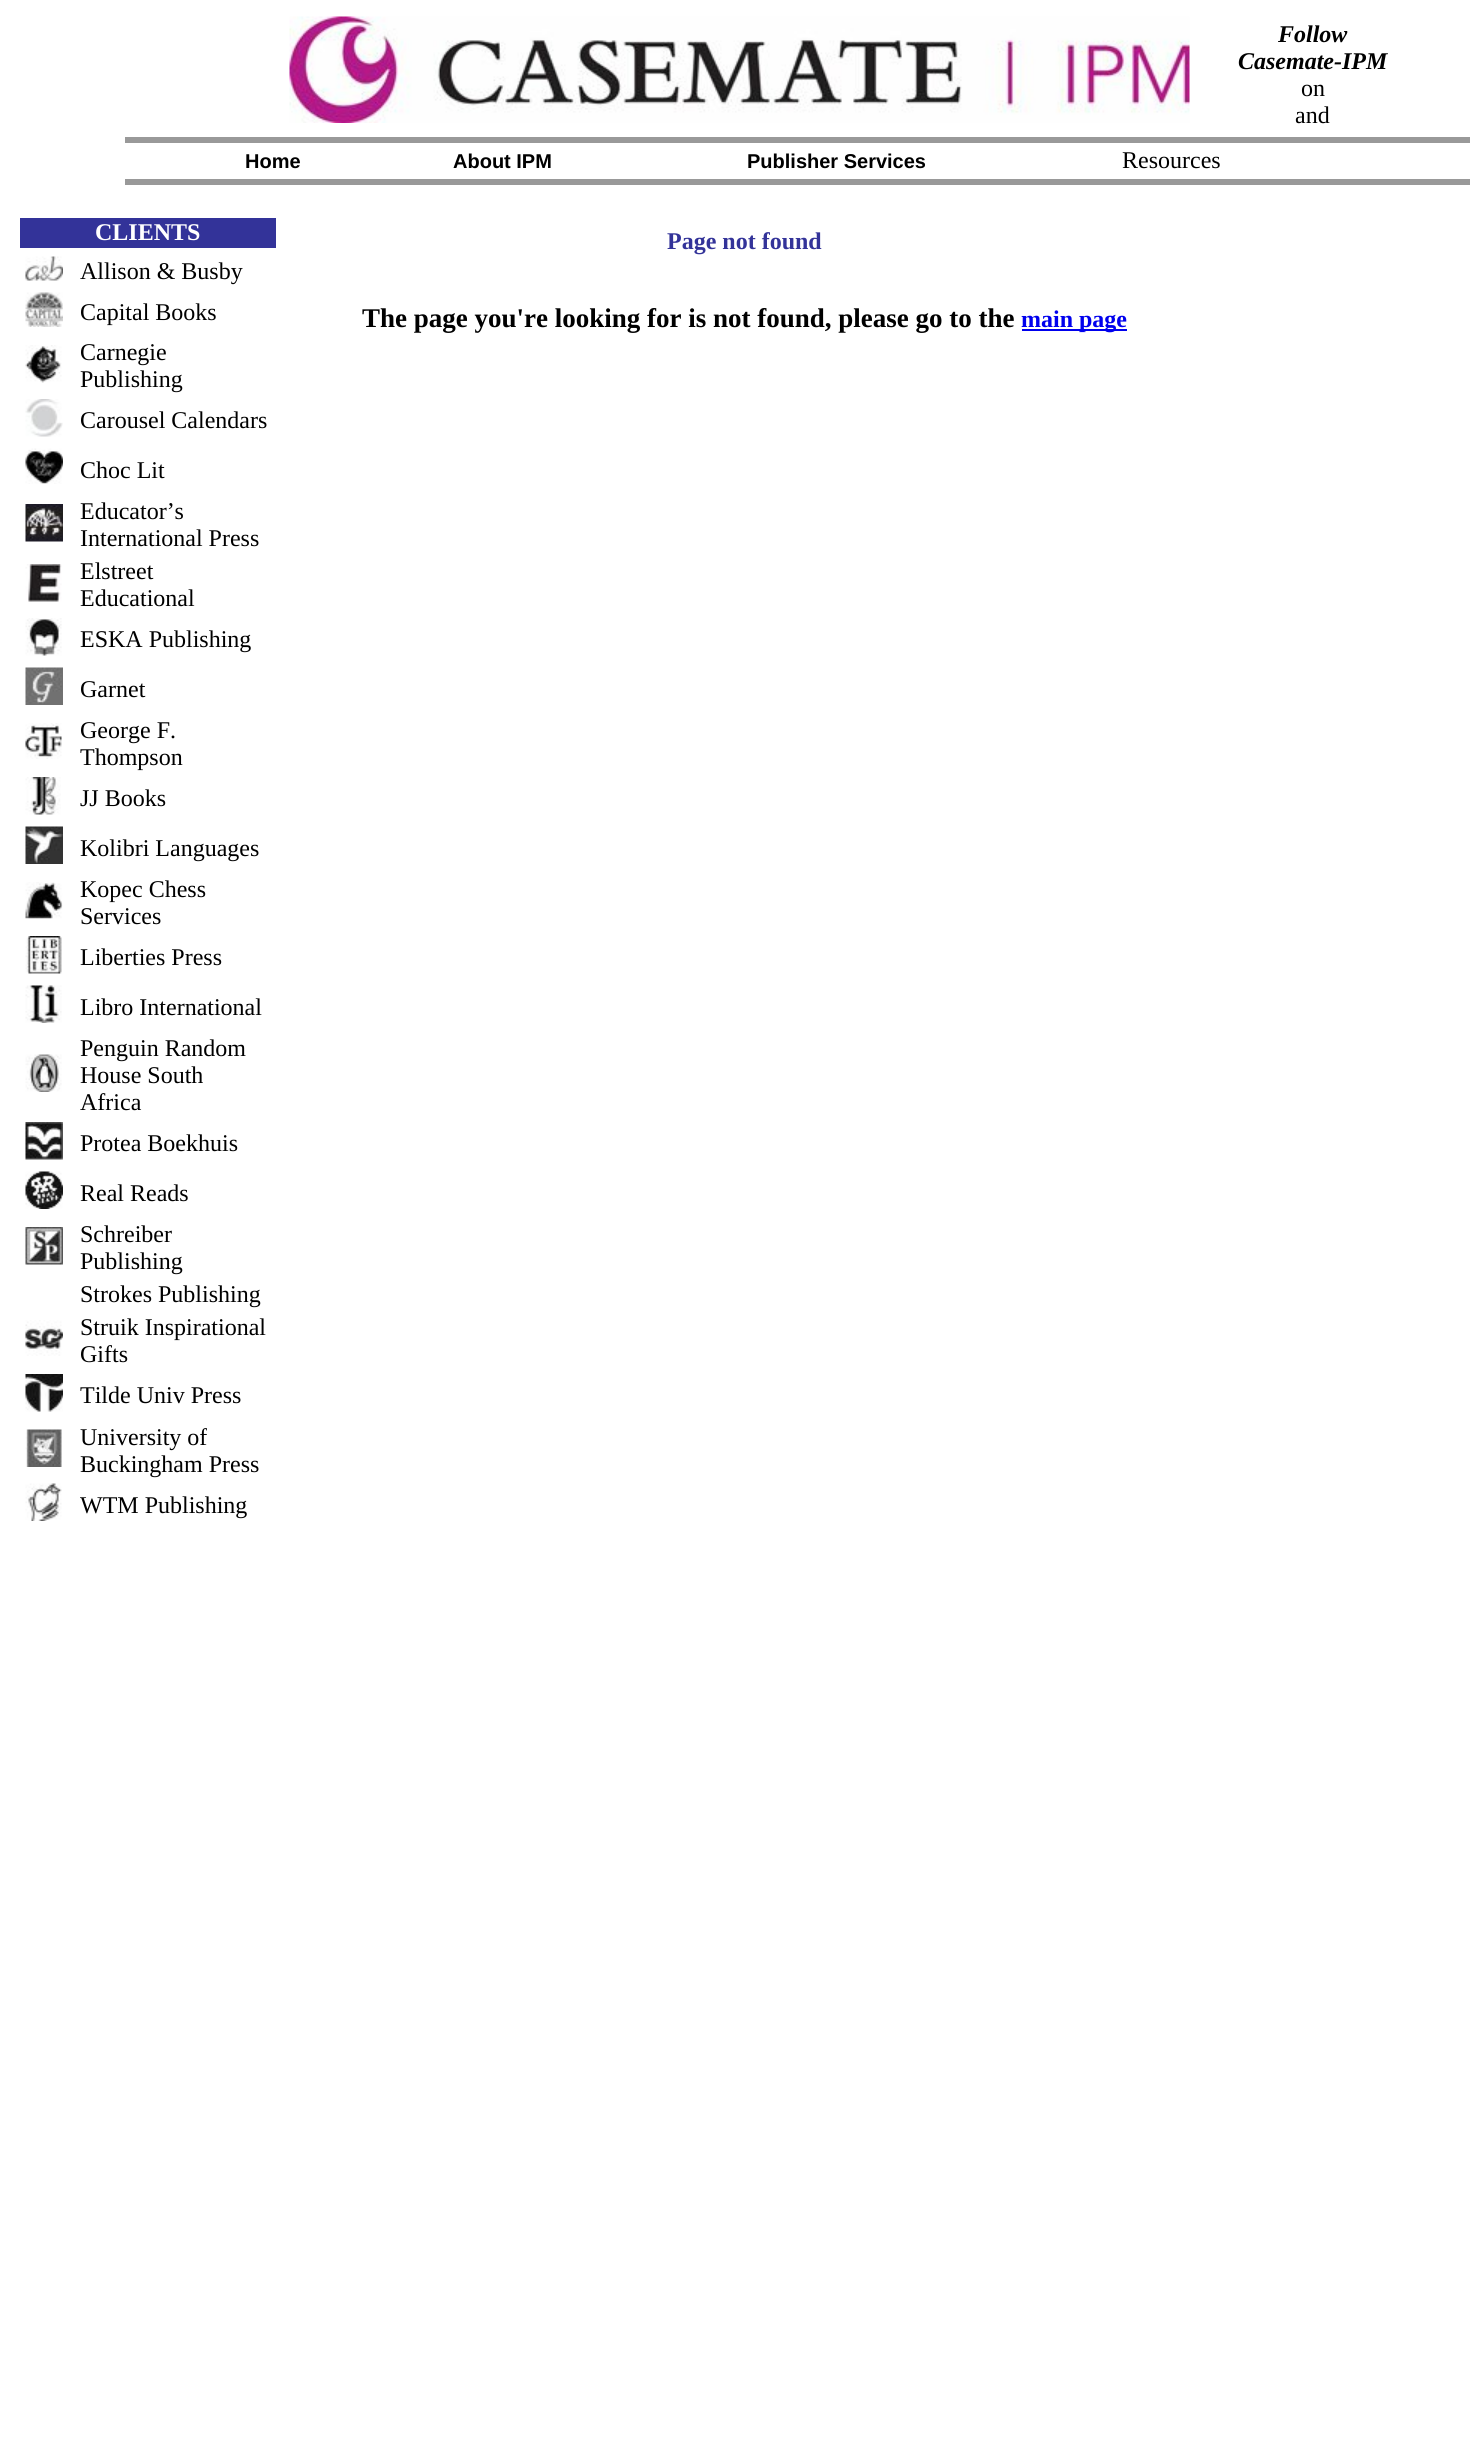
import math
import cairo

surface = cairo.ImageSurface(cairo.FORMAT_RGB24, 1484, 2450)
ctx = cairo.Context(surface)
options = cairo.FontOptions()
options.set_hint_metrics(cairo.HINT_METRICS_OFF)
options.set_hint_style(cairo.HINT_STYLE_NONE)
ctx.set_font_options(options)
ctx.set_miter_limit(4)


def picture(path, x, y, w, h):
    ctx.save()
    ctx.set_source_surface(cairo.ImageSurface.create_from_png(path), x, y)
    ctx.rectangle(x, y, w, h)
    ctx.fill()
    ctx.restore()


ctx.set_source_rgb(1, 1, 1)
ctx.paint()
picture("img1.png", 289, 16, 901, 107)
ctx.select_font_face("Liberation Serif", cairo.FONT_SLANT_ITALIC, cairo.FONT_WEIGHT_BOLD)
ctx.set_font_size(24)
ctx.set_source_rgb(0, 0, 0)
ctx.move_to(1278, 42)
ctx.show_text("Follow")
ctx.move_to(1238, 69)
ctx.show_text("Casemate-IPM")
ctx.select_font_face("Liberation Serif")
ctx.move_to(1301, 96)
ctx.show_text("on")
ctx.move_to(1295, 123)
ctx.show_text("and")
ctx.set_source_rgb(0.6, 0.6, 0.6)
ctx.rectangle(125, 137, 1345, 6)
ctx.fill()
ctx.select_font_face("Liberation Sans", cairo.FONT_SLANT_NORMAL, cairo.FONT_WEIGHT_BOLD)
ctx.set_font_size(20)
ctx.set_source_rgb(0, 0, 0)
ctx.move_to(245, 168)
ctx.show_text("Home")
ctx.move_to(453, 168)
ctx.show_text("About IPM")
ctx.move_to(747, 168)
ctx.show_text("Publisher Services")
ctx.select_font_face("Liberation Serif")
ctx.set_font_size(24)
ctx.move_to(1122, 168)
ctx.show_text("Resources")
ctx.set_source_rgb(0.6, 0.6, 0.6)
ctx.rectangle(125, 179, 1345, 6)
ctx.fill()
ctx.set_source_rgb(0.2, 0.2, 0.6)
ctx.rectangle(20, 218, 256, 30)
ctx.fill()
ctx.select_font_face("Liberation Serif", cairo.FONT_SLANT_NORMAL, cairo.FONT_WEIGHT_BOLD)
ctx.set_source_rgb(1, 1, 1)
ctx.move_to(95, 240)
ctx.show_text("CLIENTS")
picture("img2.png", 25, 256, 38, 25)
ctx.select_font_face("Liberation Serif")
ctx.set_source_rgb(0, 0, 0)
ctx.move_to(80, 279)
ctx.show_text("Allison & Busby")
picture("img3.png", 25, 292, 38, 35)
ctx.move_to(80, 320)
ctx.show_text("Capital Books")
picture("img4.png", 25, 345, 37, 38)
ctx.move_to(80, 360)
ctx.show_text("Carnegie")
ctx.move_to(80, 387)
ctx.show_text("Publishing")
picture("img5.png", 25, 399, 38, 38)
ctx.move_to(80, 428)
ctx.show_text("Carousel Calendars")
picture("img6.png", 25, 448, 38, 36)
ctx.move_to(80, 478)
ctx.show_text("Choc Lit")
picture("img7.png", 25, 504, 38, 38)
ctx.move_to(80, 519)
ctx.show_text("Educator’s")
ctx.move_to(80, 546)
ctx.show_text("International Press")
picture("img8.png", 25, 564, 37, 38)
ctx.move_to(80, 579)
ctx.show_text("Elstreet")
ctx.move_to(80, 606)
ctx.show_text("Educational")
picture("img9.png", 25, 618, 37, 38)
ctx.move_to(80, 647)
ctx.show_text("ESKA Publishing")
picture("img10.png", 25, 667, 38, 38)
ctx.move_to(80, 697)
ctx.show_text("Garnet")
picture("img11.png", 25, 723, 37, 36)
ctx.move_to(80, 738)
ctx.show_text("George F.")
ctx.move_to(80, 765)
ctx.show_text("Thompson")
picture("img12.png", 25, 777, 36, 38)
ctx.move_to(80, 806)
ctx.show_text("JJ Books")
picture("img13.png", 25, 826, 38, 38)
ctx.move_to(80, 856)
ctx.show_text("Kolibri Languages")
picture("img14.png", 25, 882, 38, 37)
ctx.move_to(80, 897)
ctx.show_text("Kopec Chess")
ctx.move_to(80, 924)
ctx.show_text("Services")
picture("img15.png", 25, 936, 37, 38)
ctx.move_to(80, 965)
ctx.show_text("Liberties Press")
picture("img16.png", 25, 985, 37, 38)
ctx.move_to(80, 1015)
ctx.show_text("Libro International")
picture("img17.png", 25, 1054, 37, 38)
ctx.move_to(80, 1056)
ctx.show_text("Penguin Random")
ctx.move_to(80, 1083)
ctx.show_text("House South")
ctx.move_to(80, 1110)
ctx.show_text("Africa")
picture("img18.png", 25, 1122, 38, 38)
ctx.move_to(80, 1151)
ctx.show_text("Protea Boekhuis")
picture("img19.png", 25, 1171, 38, 38)
ctx.move_to(80, 1201)
ctx.show_text("Real Reads")
picture("img20.png", 25, 1227, 38, 38)
ctx.move_to(80, 1242)
ctx.show_text("Schreiber")
ctx.move_to(80, 1269)
ctx.show_text("Publishing")
ctx.move_to(80, 1302)
ctx.show_text("Strokes Publishing")
picture("img21.png", 25, 1320, 38, 36)
ctx.move_to(80, 1335)
ctx.show_text("Struik Inspirational")
ctx.move_to(80, 1362)
ctx.show_text("Gifts")
picture("img22.png", 25, 1374, 38, 38)
ctx.move_to(80, 1403)
ctx.show_text("Tilde Univ Press")
picture("img23.png", 25, 1429, 37, 38)
ctx.move_to(80, 1445)
ctx.show_text("University of")
ctx.move_to(80, 1472)
ctx.show_text("Buckingham Press")
picture("img24.png", 25, 1483, 37, 38)
ctx.move_to(80, 1513)
ctx.show_text("WTM Publishing")
ctx.select_font_face("Liberation Serif", cairo.FONT_SLANT_NORMAL, cairo.FONT_WEIGHT_BOLD)
ctx.set_source_rgb(0.2, 0.2, 0.6)
ctx.move_to(667, 249)
ctx.show_text("Page not found")
ctx.set_font_size(27)
ctx.set_source_rgb(0, 0, 0)
ctx.move_to(362, 327)
ctx.show_text("The page you're looking for is not found, please go to the")
ctx.set_source_rgb(0, 0, 0.933)
ctx.rectangle(1022, 329, 105, 2)
ctx.fill()
ctx.set_font_size(24)
ctx.move_to(1021, 327)
ctx.show_text("main page")
surface.write_to_png("page.png")
